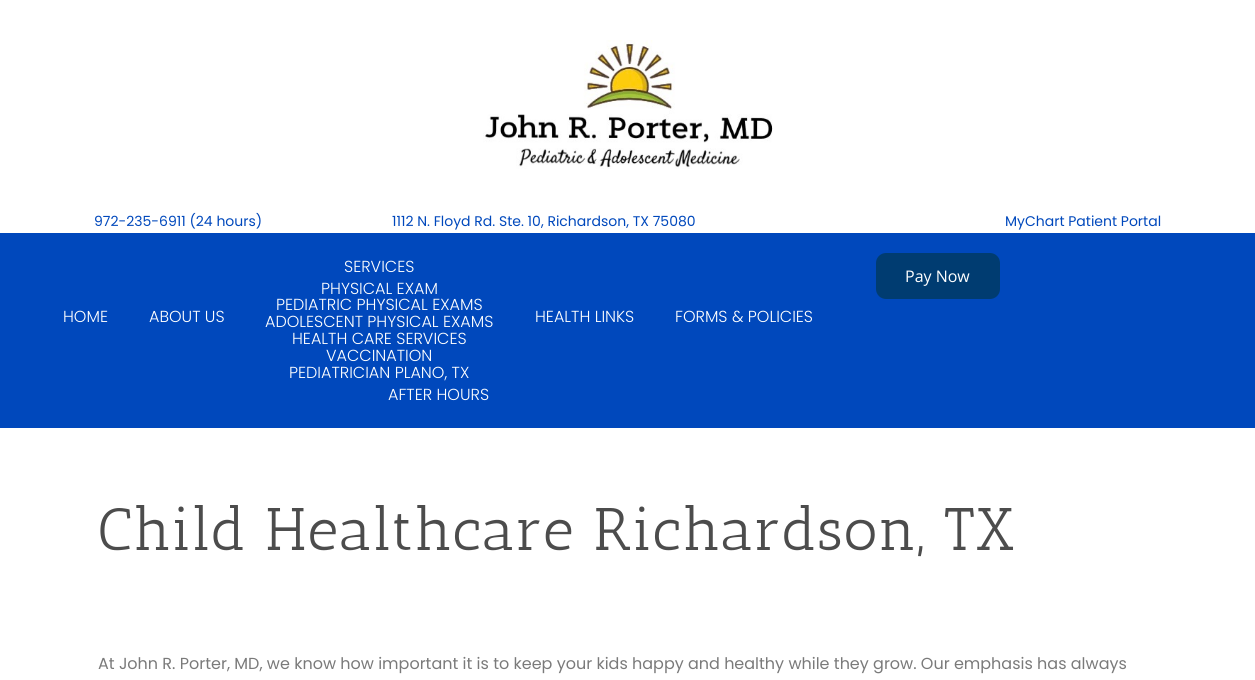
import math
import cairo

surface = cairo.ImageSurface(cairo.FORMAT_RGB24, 1255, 680)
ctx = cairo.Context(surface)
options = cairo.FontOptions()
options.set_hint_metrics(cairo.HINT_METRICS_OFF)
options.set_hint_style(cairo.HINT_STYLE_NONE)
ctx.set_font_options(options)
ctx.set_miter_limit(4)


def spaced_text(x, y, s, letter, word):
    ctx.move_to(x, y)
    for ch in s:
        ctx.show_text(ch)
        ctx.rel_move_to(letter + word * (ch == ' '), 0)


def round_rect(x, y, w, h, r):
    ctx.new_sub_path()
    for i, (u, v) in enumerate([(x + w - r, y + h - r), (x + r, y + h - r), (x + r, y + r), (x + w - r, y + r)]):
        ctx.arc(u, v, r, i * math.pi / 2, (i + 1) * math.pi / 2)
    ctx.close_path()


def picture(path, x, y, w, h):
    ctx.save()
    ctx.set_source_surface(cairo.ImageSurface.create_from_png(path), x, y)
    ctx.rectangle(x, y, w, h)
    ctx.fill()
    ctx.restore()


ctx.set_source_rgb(1, 1, 1)
ctx.paint()
picture("img1.png", 483, 40, 290, 129)
ctx.select_font_face("Poppins")
ctx.set_font_size(14)
ctx.set_source_rgb(0, 0.282, 0.737)
ctx.move_to(94, 226)
ctx.show_text("972-235-6911 (24 hours)")
ctx.move_to(392, 226)
ctx.show_text("1112 N. Floyd Rd. Ste. 10, Richardson, TX 75080")
ctx.move_to(1005, 226)
ctx.show_text("MyChart Patient Portal")
ctx.rectangle(0, 233, 1255, 195)
ctx.fill()
ctx.select_font_face("Poppins Light")
ctx.set_font_size(16)
ctx.set_source_rgb(1, 1, 1)
ctx.move_to(63, 322)
ctx.show_text("HOME")
ctx.move_to(149, 322)
ctx.show_text("ABOUT US")
ctx.move_to(344, 272)
ctx.show_text("SERVICES")
ctx.move_to(321, 294)
ctx.show_text("PHYSICAL EXAM")
ctx.move_to(276, 310)
ctx.show_text("PEDIATRIC PHYSICAL EXAMS")
ctx.move_to(265, 327)
ctx.show_text("ADOLESCENT PHYSICAL EXAMS")
ctx.move_to(292, 344)
ctx.show_text("HEALTH CARE SERVICES")
ctx.move_to(326, 361)
ctx.show_text("VACCINATION")
ctx.move_to(289, 378)
ctx.show_text("PEDIATRICIAN PLANO, TX")
ctx.move_to(535, 322)
ctx.show_text("HEALTH LINKS")
ctx.move_to(675, 322)
ctx.show_text("FORMS & POLICIES")
ctx.move_to(388, 400)
ctx.show_text("AFTER HOURS")
ctx.set_source_rgb(0, 0.235, 0.443)
round_rect(876, 253, 124, 46, 10)
ctx.fill()
ctx.select_font_face("Open Sans")
ctx.set_source_rgb(1, 1, 1)
ctx.move_to(905, 282)
ctx.show_text("Pay Now")
ctx.select_font_face("Antic Slab")
ctx.set_font_size(60)
ctx.set_source_rgb(0.298, 0.298, 0.298)
spaced_text(98, 550, "Child Healthcare Richardson, TX", 1, 0)
ctx.select_font_face("Poppins")
ctx.set_font_size(16)
ctx.set_source_rgb(0.478, 0.478, 0.478)
ctx.move_to(98, 669)
ctx.show_text("At John R. Porter, MD, we know how important it is to keep your kids happy and healthy while they grow. Our emphasis has always")
surface.write_to_png("page.png")
